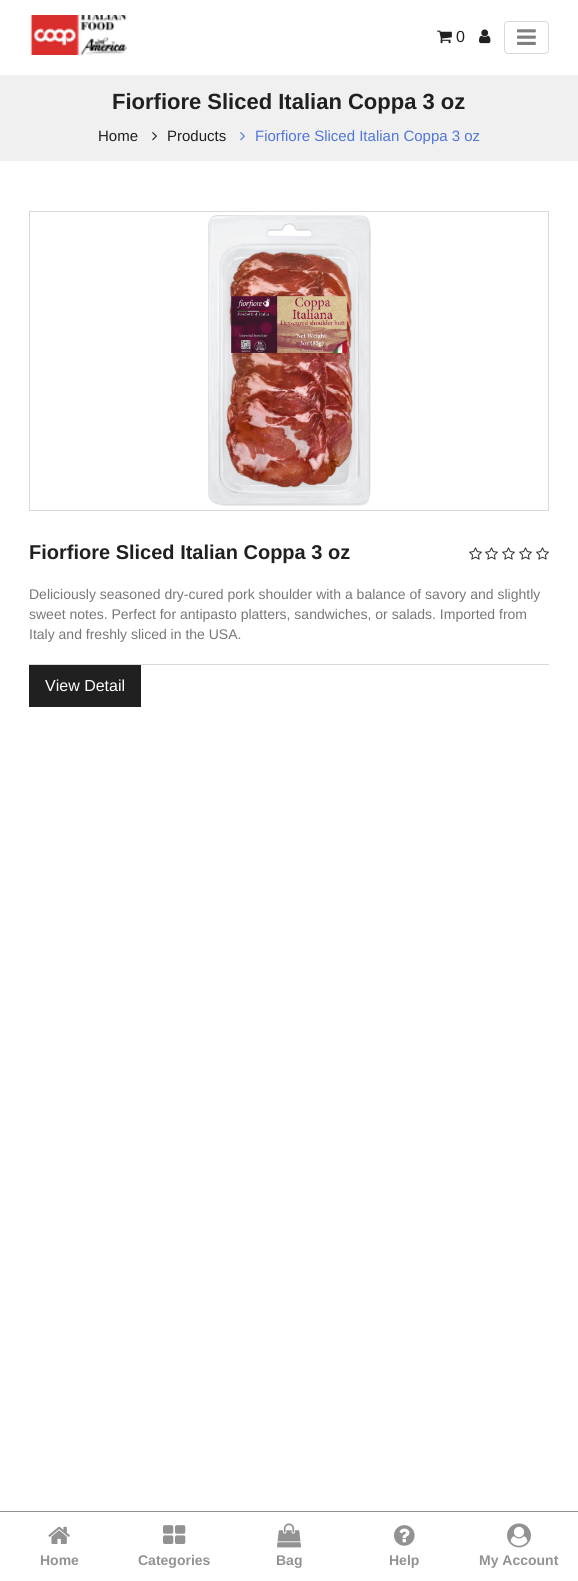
import math
import cairo

surface = cairo.ImageSurface(cairo.FORMAT_RGB24, 578, 1581)
ctx = cairo.Context(surface)
options = cairo.FontOptions()
options.set_hint_metrics(cairo.HINT_METRICS_OFF)
options.set_hint_style(cairo.HINT_STYLE_NONE)
ctx.set_font_options(options)
ctx.set_miter_limit(4)


def round_rect(x, y, w, h, r):
    ctx.new_sub_path()
    for i, (u, v) in enumerate([(x + w - r, y + h - r), (x + r, y + h - r), (x + r, y + r), (x + w - r, y + r)]):
        ctx.arc(u, v, r, i * math.pi / 2, (i + 1) * math.pi / 2)
    ctx.close_path()


def picture(path, x, y, w, h):
    ctx.save()
    ctx.set_source_surface(cairo.ImageSurface.create_from_png(path), x, y)
    ctx.rectangle(x, y, w, h)
    ctx.fill()
    ctx.restore()


ctx.set_source_rgb(1, 1, 1)
ctx.paint()
picture("img1.png", 30, 15, 97, 40)
picture("img2.png", 437, 30, 15, 14)
ctx.select_font_face("Liberation Sans")
ctx.set_font_size(16)
ctx.set_source_rgb(0.125, 0.125, 0.125)
ctx.move_to(456, 42)
ctx.show_text("0")
picture("img3.png", 479, 29, 12, 15)
round_rect(504.5, 21.5, 44, 32, 3.5)
ctx.set_source_rgb(0.851, 0.851, 0.851)
ctx.set_line_width(1)
ctx.stroke()
picture("img4.png", 517, 29, 19, 16)
ctx.set_source_rgb(0.941, 0.941, 0.941)
ctx.rectangle(0, 75, 578, 86)
ctx.fill()
ctx.select_font_face("Liberation Sans", cairo.FONT_SLANT_NORMAL, cairo.FONT_WEIGHT_BOLD)
ctx.set_font_size(22)
ctx.set_source_rgb(0.125, 0.125, 0.125)
ctx.move_to(112, 109)
ctx.show_text("Fiorfiore Sliced Italian Coppa 3 oz")
ctx.select_font_face("Liberation Sans")
ctx.set_font_size(15)
ctx.move_to(98, 141)
ctx.show_text("Home")
picture("img5.png", 152, 132, 5, 9)
ctx.move_to(167, 141)
ctx.show_text("Products")
picture("img6.png", 240, 132, 5, 9)
ctx.set_source_rgb(0.314, 0.463, 0.859)
ctx.move_to(255, 141)
ctx.show_text("Fiorfiore Sliced Italian Coppa 3 oz")
ctx.rectangle(29.5, 211.5, 519, 299)
ctx.set_source_rgb(0.851, 0.851, 0.851)
ctx.stroke()
picture("img7.png", 208, 215, 163, 291)
ctx.select_font_face("Liberation Sans", cairo.FONT_SLANT_NORMAL, cairo.FONT_WEIGHT_BOLD)
ctx.set_font_size(20)
ctx.set_source_rgb(0.125, 0.125, 0.125)
ctx.move_to(29, 559)
ctx.show_text("Fiorfiore Sliced Italian Coppa 3 oz")
picture("img8.png", 469, 547, 13, 13)
picture("img8.png", 485, 547, 13, 13)
picture("img8.png", 502, 547, 13, 13)
picture("img8.png", 519, 547, 13, 13)
picture("img8.png", 536, 547, 13, 13)
ctx.select_font_face("Liberation Sans")
ctx.set_font_size(14)
ctx.set_source_rgb(0.467, 0.467, 0.467)
ctx.move_to(29, 599)
ctx.show_text("Deliciously seasoned dry-cured pork shoulder with a balance of savory and slightly")
ctx.move_to(29, 619)
ctx.show_text("sweet notes. Perfect for antipasto platters, sandwiches, or salads. Imported from")
ctx.move_to(29, 639)
ctx.show_text("Italy and freshly sliced in the USA.")
ctx.set_source_rgb(0.851, 0.851, 0.851)
ctx.rectangle(29, 664, 520, 1)
ctx.fill()
ctx.set_source_rgb(0.125, 0.125, 0.125)
ctx.rectangle(29, 665, 112, 42)
ctx.fill()
ctx.set_font_size(16)
ctx.set_source_rgb(1, 1, 1)
ctx.move_to(45, 691)
ctx.show_text("View Detail")
ctx.set_source_rgb(0.573, 0.573, 0.573)
ctx.rectangle(0, 1511, 578, 1)
ctx.fill()
picture("img9.png", 48, 1526, 22, 18)
ctx.select_font_face("Liberation Sans", cairo.FONT_SLANT_NORMAL, cairo.FONT_WEIGHT_BOLD)
ctx.set_font_size(14)
ctx.move_to(40, 1565)
ctx.show_text("Home")
picture("img10.png", 163, 1525, 23, 19)
ctx.move_to(138, 1565)
ctx.show_text("Categories")
picture("img11.png", 277, 1523, 24, 25)
ctx.move_to(276, 1565)
ctx.show_text("Bag")
picture("img12.png", 394, 1525, 21, 21)
ctx.move_to(389, 1565)
ctx.show_text("Help")
picture("img13.png", 507, 1523, 24, 25)
ctx.move_to(479, 1565)
ctx.show_text("My Account")
surface.write_to_png("page.png")
